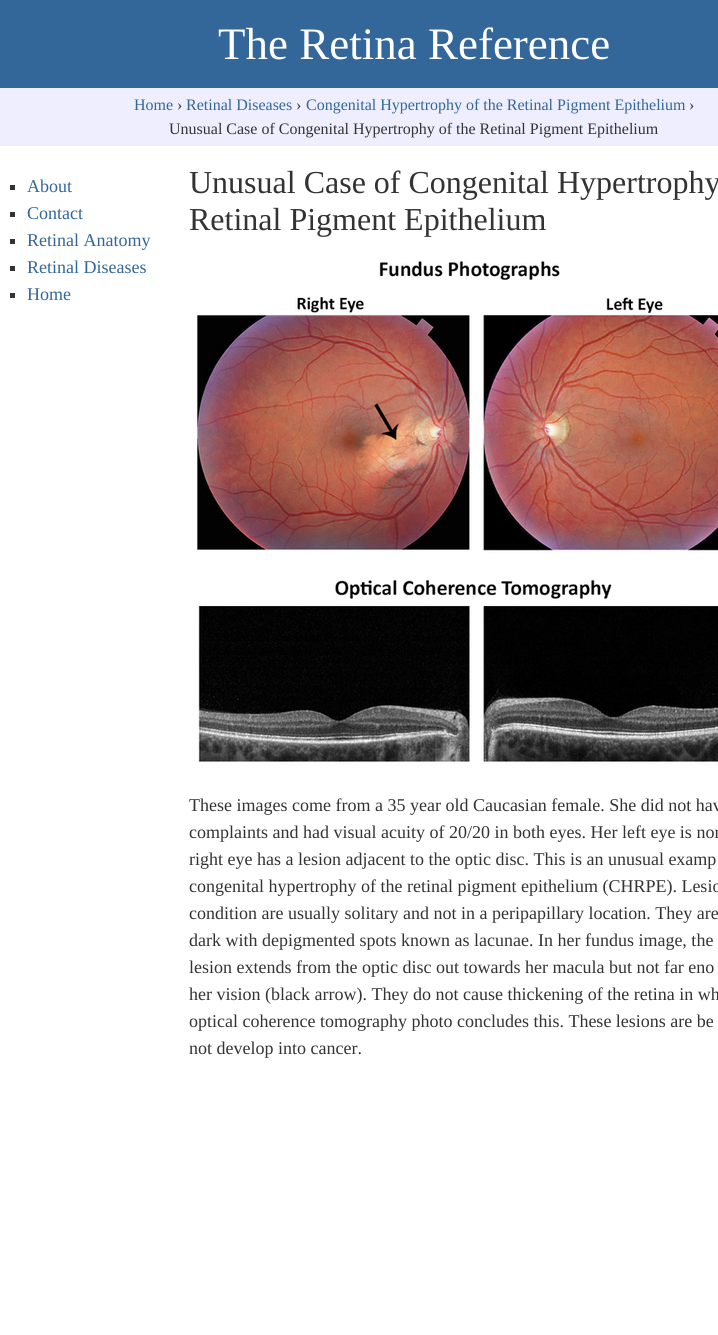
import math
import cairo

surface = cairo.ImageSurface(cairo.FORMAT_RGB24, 718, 1335)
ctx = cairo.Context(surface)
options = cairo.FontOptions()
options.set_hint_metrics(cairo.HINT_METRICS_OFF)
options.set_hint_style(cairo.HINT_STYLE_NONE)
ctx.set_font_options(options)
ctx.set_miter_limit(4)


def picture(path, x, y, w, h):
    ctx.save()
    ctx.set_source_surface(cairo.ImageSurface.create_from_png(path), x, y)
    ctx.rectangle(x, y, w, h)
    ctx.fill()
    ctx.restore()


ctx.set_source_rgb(1, 1, 1)
ctx.paint()
ctx.set_source_rgb(0.2, 0.4, 0.6)
ctx.rectangle(0, 0, 718, 88)
ctx.fill()
ctx.select_font_face("Liberation Serif")
ctx.set_font_size(45)
ctx.set_source_rgb(1, 1, 1)
ctx.move_to(218, 59)
ctx.show_text("The Retina Reference")
ctx.set_source_rgb(0.933, 0.933, 1)
ctx.rectangle(0, 88, 718, 58)
ctx.fill()
ctx.set_font_size(16)
ctx.set_source_rgb(0.2, 0.4, 0.6)
ctx.move_to(134, 110)
ctx.show_text("Home")
ctx.set_source_rgb(0.2, 0.2, 0.2)
ctx.move_to(177, 110)
ctx.show_text("›")
ctx.set_source_rgb(0.2, 0.4, 0.6)
ctx.move_to(186, 110)
ctx.show_text("Retinal Diseases")
ctx.set_source_rgb(0.2, 0.2, 0.2)
ctx.move_to(296, 110)
ctx.show_text("›")
ctx.set_source_rgb(0.2, 0.4, 0.6)
ctx.move_to(306, 110)
ctx.show_text("Congenital Hypertrophy of the Retinal Pigment Epithelium")
ctx.set_source_rgb(0.2, 0.2, 0.2)
ctx.move_to(689, 110)
ctx.show_text("›")
ctx.move_to(169, 134)
ctx.show_text("Unusual Case of Congenital Hypertrophy of the Retinal Pigment Epithelium")
ctx.rectangle(10, 185, 5, 5)
ctx.fill()
ctx.set_font_size(18)
ctx.set_source_rgb(0.2, 0.4, 0.6)
ctx.move_to(27, 192)
ctx.show_text("About")
ctx.set_source_rgb(0.2, 0.2, 0.2)
ctx.rectangle(10, 212, 5, 5)
ctx.fill()
ctx.set_source_rgb(0.2, 0.4, 0.6)
ctx.move_to(27, 219)
ctx.show_text("Contact")
ctx.set_source_rgb(0.2, 0.2, 0.2)
ctx.rectangle(10, 239, 5, 5)
ctx.fill()
ctx.set_source_rgb(0.2, 0.4, 0.6)
ctx.move_to(27, 246)
ctx.show_text("Retinal Anatomy")
ctx.set_source_rgb(0.2, 0.2, 0.2)
ctx.rectangle(10, 266, 5, 5)
ctx.fill()
ctx.set_source_rgb(0.2, 0.4, 0.6)
ctx.move_to(27, 273)
ctx.show_text("Retinal Diseases")
ctx.set_source_rgb(0.2, 0.2, 0.2)
ctx.rectangle(10, 293, 5, 5)
ctx.fill()
ctx.set_source_rgb(0.2, 0.4, 0.6)
ctx.move_to(27, 300)
ctx.show_text("Home")
ctx.set_font_size(32)
ctx.set_source_rgb(0.2, 0.2, 0.2)
ctx.move_to(189, 193)
ctx.show_text("Unusual Case of Congenital Hypertrophy")
ctx.move_to(189, 230)
ctx.show_text("Retinal Pigment Epithelium")
picture("img1.png", 197, 259, 521, 505)
ctx.set_font_size(18)
ctx.move_to(189, 811)
ctx.show_text("These images come from a 35 year old Caucasian female. She did not hav")
ctx.move_to(189, 838)
ctx.show_text("complaints and had visual acuity of 20/20 in both eyes. Her left eye is nor")
ctx.move_to(189, 865)
ctx.show_text("right eye has a lesion adjacent to the optic disc. This is an unusual examp")
ctx.move_to(189, 892)
ctx.show_text("congenital hypertrophy of the retinal pigment epithelium (CHRPE). Lesio")
ctx.move_to(189, 919)
ctx.show_text("condition are usually solitary and not in a peripapillary location. They are")
ctx.move_to(189, 946)
ctx.show_text("dark with depigmented spots known as lacunae. In her fundus image, the")
ctx.move_to(189, 973)
ctx.show_text("lesion extends from the optic disc out towards her macula but not far eno")
ctx.move_to(189, 1000)
ctx.show_text("her vision (black arrow). They do not cause thickening of the retina in wh")
ctx.move_to(189, 1027)
ctx.show_text("optical coherence tomography photo concludes this. These lesions are be")
ctx.move_to(189, 1054)
ctx.show_text("not develop into cancer.")
surface.write_to_png("page.png")
